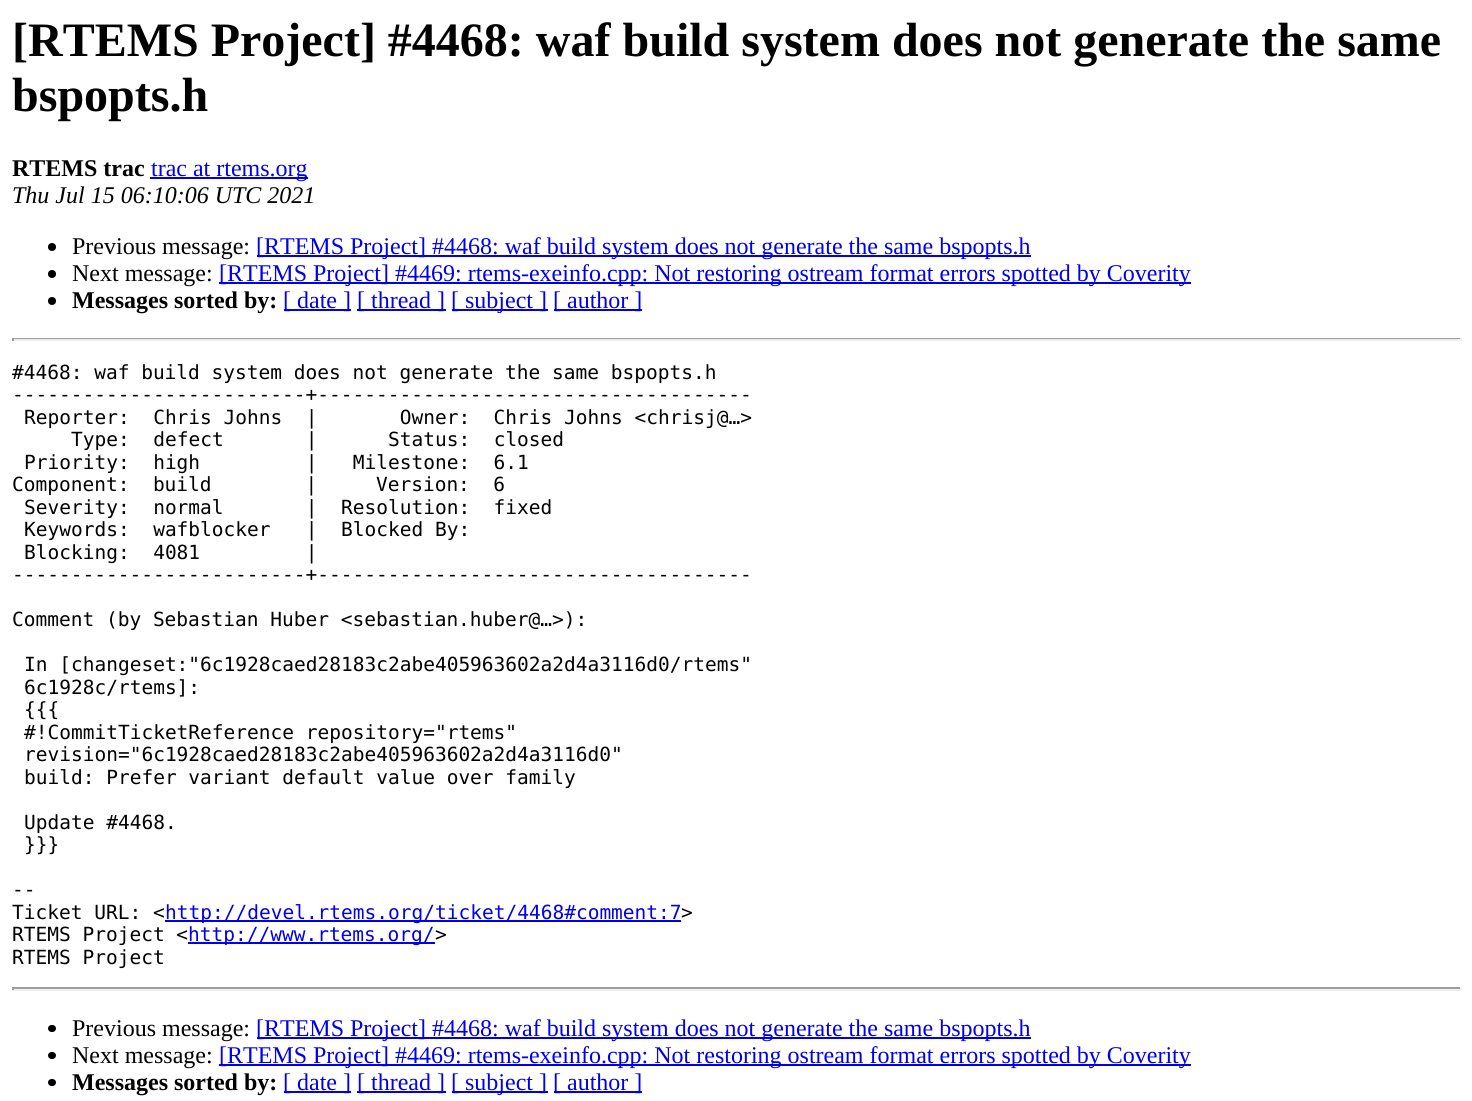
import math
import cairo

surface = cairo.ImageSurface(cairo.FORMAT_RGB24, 1472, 1101)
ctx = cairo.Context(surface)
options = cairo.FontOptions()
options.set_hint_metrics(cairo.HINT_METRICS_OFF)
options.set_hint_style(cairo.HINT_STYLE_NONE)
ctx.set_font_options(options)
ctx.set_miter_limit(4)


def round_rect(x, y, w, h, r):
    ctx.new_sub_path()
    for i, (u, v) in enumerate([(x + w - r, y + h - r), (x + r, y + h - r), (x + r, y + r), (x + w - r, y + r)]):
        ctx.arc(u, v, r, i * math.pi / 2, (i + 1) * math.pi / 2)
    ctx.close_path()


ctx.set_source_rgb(1, 1, 1)
ctx.paint()
ctx.select_font_face("Liberation Serif", cairo.FONT_SLANT_NORMAL, cairo.FONT_WEIGHT_BOLD)
ctx.set_font_size(48)
ctx.set_source_rgb(0, 0, 0)
ctx.move_to(12, 56)
ctx.show_text("[RTEMS Project] #4468: waf build system does not generate the same")
ctx.move_to(12, 111)
ctx.show_text("bspopts.h")
ctx.set_font_size(24)
ctx.move_to(12, 176)
ctx.show_text("RTEMS trac")
ctx.set_source_rgb(0, 0, 0.933)
ctx.rectangle(150, 177, 158, 2)
ctx.fill()
ctx.select_font_face("Liberation Serif")
ctx.move_to(151, 176)
ctx.show_text("trac at rtems.org")
ctx.select_font_face("Liberation Serif", cairo.FONT_SLANT_ITALIC)
ctx.set_source_rgb(0, 0, 0)
ctx.move_to(12, 203)
ctx.show_text("Thu Jul 15 06:10:06 UTC 2021")
ctx.new_path()
ctx.arc(52, 247, 4, 0, 2 * math.pi)
ctx.fill()
ctx.select_font_face("Liberation Serif")
ctx.move_to(72, 254)
ctx.show_text("Previous message:")
ctx.set_source_rgb(0, 0, 0.933)
ctx.rectangle(257, 255, 774, 2)
ctx.fill()
ctx.move_to(256, 254)
ctx.show_text("[RTEMS Project] #4468: waf build system does not generate the same bspopts.h")
ctx.set_source_rgb(0, 0, 0)
ctx.new_path()
ctx.arc(52, 274, 4, 0, 2 * math.pi)
ctx.fill()
ctx.move_to(72, 281)
ctx.show_text("Next message:")
ctx.set_source_rgb(0, 0, 0.933)
ctx.rectangle(219, 282, 972, 2)
ctx.fill()
ctx.move_to(219, 281)
ctx.show_text("[RTEMS Project] #4469: rtems-exeinfo.cpp: Not restoring ostream format errors spotted by Coverity")
ctx.set_source_rgb(0, 0, 0)
ctx.new_path()
ctx.arc(52, 301, 4, 0, 2 * math.pi)
ctx.fill()
ctx.select_font_face("Liberation Serif", cairo.FONT_SLANT_NORMAL, cairo.FONT_WEIGHT_BOLD)
ctx.move_to(72, 308)
ctx.show_text("Messages sorted by:")
ctx.set_source_rgb(0, 0, 0.933)
ctx.rectangle(284, 309, 67, 2)
ctx.fill()
ctx.select_font_face("Liberation Serif")
ctx.move_to(283, 308)
ctx.show_text("[ date ]")
ctx.rectangle(357, 309, 89, 2)
ctx.fill()
ctx.move_to(357, 308)
ctx.show_text("[ thread ]")
ctx.rectangle(452, 309, 96, 2)
ctx.fill()
ctx.move_to(451, 308)
ctx.show_text("[ subject ]")
ctx.rectangle(554, 309, 88, 2)
ctx.fill()
ctx.move_to(553, 308)
ctx.show_text("[ author ]")
ctx.set_source_rgb(0.624, 0.624, 0.624)
ctx.rectangle(12, 338, 1449, 1)
ctx.fill()
ctx.set_source_rgb(0.933, 0.933, 0.933)
ctx.rectangle(1460, 338, 2, 3)
ctx.fill()
ctx.rectangle(12, 339, 1449, 2)
ctx.fill()
ctx.set_source_rgb(0.624, 0.624, 0.624)
ctx.rectangle(12, 338, 2, 3)
ctx.fill()
ctx.select_font_face("DejaVu Sans Mono")
ctx.set_font_size(19.5)
ctx.set_source_rgb(0, 0, 0)
ctx.move_to(12, 379)
ctx.show_text("#4468: waf build system does not generate the same bspopts.h")
ctx.move_to(12, 401)
ctx.show_text("-------------------------+-------------------------------------")
ctx.move_to(24, 424)
ctx.show_text("Reporter:  Chris Johns  |       Owner:  Chris Johns <chrisj@…>")
ctx.move_to(71, 446)
ctx.show_text("Type:  defect       |      Status:  closed")
ctx.move_to(24, 469)
ctx.show_text("Priority:  high         |   Milestone:  6.1")
ctx.move_to(12, 491)
ctx.show_text("Component:  build        |     Version:  6")
ctx.move_to(24, 514)
ctx.show_text("Severity:  normal       |  Resolution:  fixed")
ctx.move_to(24, 536)
ctx.show_text("Keywords:  wafblocker   |  Blocked By:")
ctx.move_to(24, 559)
ctx.show_text("Blocking:  4081         |")
ctx.move_to(12, 581)
ctx.show_text("-------------------------+-------------------------------------")
ctx.move_to(12, 626)
ctx.show_text("Comment (by Sebastian Huber <sebastian.huber@…>):")
ctx.move_to(24, 671)
ctx.show_text("In [changeset:\"6c1928caed28183c2abe405963602a2d4a3116d0/rtems\"")
ctx.move_to(24, 694)
ctx.show_text("6c1928c/rtems]:")
ctx.move_to(24, 716)
ctx.show_text("{{{")
ctx.move_to(24, 739)
ctx.show_text("#!CommitTicketReference repository=\"rtems\"")
ctx.move_to(24, 761)
ctx.show_text("revision=\"6c1928caed28183c2abe405963602a2d4a3116d0\"")
ctx.move_to(24, 784)
ctx.show_text("build: Prefer variant default value over family")
ctx.move_to(24, 829)
ctx.show_text("Update #4468.")
ctx.move_to(24, 851)
ctx.show_text("}}}")
ctx.move_to(12, 896)
ctx.show_text("--")
ctx.move_to(12, 919)
ctx.show_text("Ticket URL: <")
ctx.set_source_rgb(0, 0, 0.933)
ctx.rectangle(165, 920, 516, 2)
ctx.fill()
ctx.move_to(165, 919)
ctx.show_text("http://devel.rtems.org/ticket/4468#comment:7")
ctx.set_source_rgb(0, 0, 0)
ctx.move_to(681, 919)
ctx.show_text(">")
ctx.move_to(12, 941)
ctx.show_text("RTEMS Project <")
ctx.set_source_rgb(0, 0, 0.933)
ctx.rectangle(188, 942, 247, 2)
ctx.fill()
ctx.move_to(188, 941)
ctx.show_text("http://www.rtems.org/")
ctx.set_source_rgb(0, 0, 0)
ctx.move_to(435, 941)
ctx.show_text(">")
ctx.move_to(12, 964)
ctx.show_text("RTEMS Project")
ctx.set_source_rgb(0.624, 0.624, 0.624)
ctx.rectangle(12, 987, 1449, 2)
ctx.fill()
ctx.set_source_rgb(0.933, 0.933, 0.933)
ctx.rectangle(1460, 987, 2, 3)
ctx.fill()
ctx.rectangle(12, 989, 1449, 2)
ctx.fill()
ctx.set_source_rgb(0.624, 0.624, 0.624)
ctx.rectangle(12, 987, 2, 3)
ctx.fill()
ctx.set_source_rgb(0, 0, 0)
round_rect(48, 1025, 8, 7, 3.5)
ctx.fill()
ctx.select_font_face("Liberation Serif")
ctx.set_font_size(24)
ctx.move_to(72, 1036)
ctx.show_text("Previous message:")
ctx.set_source_rgb(0, 0, 0.933)
ctx.rectangle(257, 1037, 774, 2)
ctx.fill()
ctx.move_to(256, 1036)
ctx.show_text("[RTEMS Project] #4468: waf build system does not generate the same bspopts.h")
ctx.set_source_rgb(0, 0, 0)
round_rect(48, 1052, 8, 7, 3.5)
ctx.fill()
ctx.move_to(72, 1063)
ctx.show_text("Next message:")
ctx.set_source_rgb(0, 0, 0.933)
ctx.rectangle(219, 1064, 972, 2)
ctx.fill()
ctx.move_to(219, 1063)
ctx.show_text("[RTEMS Project] #4469: rtems-exeinfo.cpp: Not restoring ostream format errors spotted by Coverity")
ctx.set_source_rgb(0, 0, 0)
round_rect(48, 1079, 8, 7, 3.5)
ctx.fill()
ctx.select_font_face("Liberation Serif", cairo.FONT_SLANT_NORMAL, cairo.FONT_WEIGHT_BOLD)
ctx.move_to(72, 1090)
ctx.show_text("Messages sorted by:")
ctx.set_source_rgb(0, 0, 0.933)
ctx.rectangle(284, 1091, 67, 2)
ctx.fill()
ctx.select_font_face("Liberation Serif")
ctx.move_to(283, 1090)
ctx.show_text("[ date ]")
ctx.rectangle(357, 1091, 89, 2)
ctx.fill()
ctx.move_to(357, 1090)
ctx.show_text("[ thread ]")
ctx.rectangle(452, 1091, 96, 2)
ctx.fill()
ctx.move_to(451, 1090)
ctx.show_text("[ subject ]")
ctx.rectangle(554, 1091, 88, 2)
ctx.fill()
ctx.move_to(553, 1090)
ctx.show_text("[ author ]")
surface.write_to_png("page.png")
